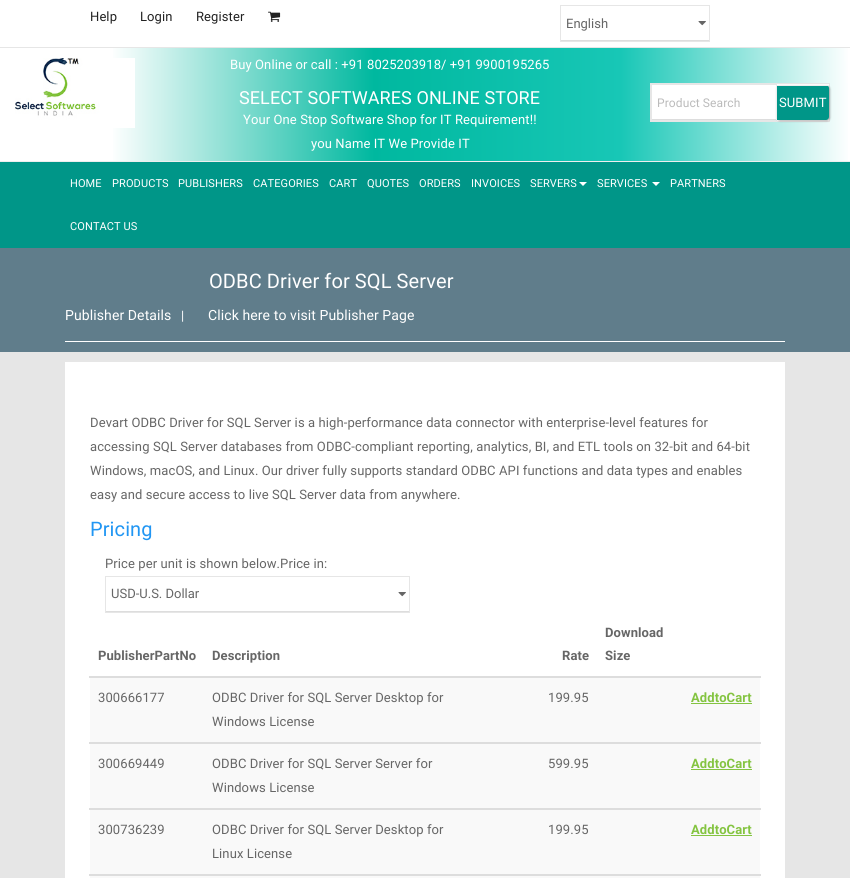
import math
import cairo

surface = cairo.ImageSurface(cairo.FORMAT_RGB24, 850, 878)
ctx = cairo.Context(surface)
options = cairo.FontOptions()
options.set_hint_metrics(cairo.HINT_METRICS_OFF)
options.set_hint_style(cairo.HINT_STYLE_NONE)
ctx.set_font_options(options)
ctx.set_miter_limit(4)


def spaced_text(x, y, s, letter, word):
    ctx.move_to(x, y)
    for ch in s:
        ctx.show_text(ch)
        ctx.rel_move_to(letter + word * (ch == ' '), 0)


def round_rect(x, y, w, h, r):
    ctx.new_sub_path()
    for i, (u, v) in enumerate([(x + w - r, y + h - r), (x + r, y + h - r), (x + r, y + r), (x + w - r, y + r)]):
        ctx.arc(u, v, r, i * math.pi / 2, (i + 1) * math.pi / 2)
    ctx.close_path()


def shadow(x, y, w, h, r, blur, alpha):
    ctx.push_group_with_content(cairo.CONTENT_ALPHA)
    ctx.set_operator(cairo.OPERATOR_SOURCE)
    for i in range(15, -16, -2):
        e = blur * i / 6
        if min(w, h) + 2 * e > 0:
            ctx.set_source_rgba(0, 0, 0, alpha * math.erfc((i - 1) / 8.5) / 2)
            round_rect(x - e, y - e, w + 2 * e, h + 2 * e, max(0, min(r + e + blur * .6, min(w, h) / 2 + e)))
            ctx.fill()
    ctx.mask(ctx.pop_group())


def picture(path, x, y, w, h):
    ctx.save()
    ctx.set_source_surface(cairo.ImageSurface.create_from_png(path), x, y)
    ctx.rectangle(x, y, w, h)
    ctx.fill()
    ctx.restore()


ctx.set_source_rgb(1, 1, 1)
ctx.paint()
ctx.set_source_rgb(0.902, 0.902, 0.902)
ctx.rectangle(0, 47, 850, 1)
ctx.fill()
ctx.select_font_face("Roboto")
ctx.set_font_size(13)
ctx.set_source_rgb(0.133, 0.133, 0.133)
spaced_text(90, 21, "Help", 0.1, 0)
spaced_text(140, 21, "Login", 0.1, 0)
spaced_text(196, 21, "Register", 0.1, 0)
picture("img1.png", 268, 11, 13, 11)
picture("img2.png", 698, 21, 8, 5)
ctx.set_source_rgb(0.867, 0.867, 0.867)
ctx.rectangle(561, 40, 148, 1)
ctx.fill()
ctx.rectangle(560.5, 5.5, 149, 36)
ctx.set_source_rgb(0.902, 0.902, 0.902)
ctx.set_line_width(1)
ctx.stroke()
ctx.set_source_rgb(0.4, 0.4, 0.4)
ctx.move_to(566, 28)
ctx.show_text("English")
gradient = cairo.LinearGradient(0, 105, 850, 104)
gradient.add_color_stop_rgba(0, 1, 1, 1, 1)
gradient.add_color_stop_rgba(0.13, 1, 1, 1, 1)
gradient.add_color_stop_rgba(0.44, 0, 0.722, 0.624, 1)
gradient.add_color_stop_rgba(0.73, 0.094, 0.78, 0.714, 1)
gradient.add_color_stop_rgba(1, 1, 1, 1, 1)
ctx.set_source(gradient)
ctx.rectangle(113, 48, 735, 113)
ctx.fill()
picture("img3.png", 15, 58, 120, 70)
ctx.set_source_rgb(1, 1, 1)
spaced_text(230, 69, "Buy Online or call : +91 8025203918/ +91 9900195265", 0.1, 0)
ctx.set_font_size(18)
spaced_text(239, 104, "SELECT SOFTWARES ONLINE STORE", 0.1, 0)
ctx.set_font_size(13)
spaced_text(243, 124, "Your One Stop Software Shop for IT Requirement!!", 0.1, 0)
spaced_text(311, 148, "you Name IT We Provide IT", 0.1, 0)
ctx.rectangle(652, 84, 177, 37)
ctx.fill()
ctx.rectangle(650.5, 83.5, 179, 38)
ctx.set_source_rgb(0.902, 0.902, 0.902)
ctx.stroke()
ctx.set_source_rgb(0.867, 0.867, 0.867)
ctx.rectangle(652, 119, 124, 1)
ctx.fill()
ctx.rectangle(651.5, 84.5, 125, 36)
ctx.set_source_rgb(0.902, 0.902, 0.902)
ctx.stroke()
ctx.set_font_size(12)
ctx.set_source_rgb(0.733, 0.733, 0.733)
spaced_text(657, 107, "Product Search", 0.1, 0)
ctx.set_source_rgb(0, 0, 0)
shadow(777, 86, 53, 35, 3, 1, 0.3)
ctx.set_source_rgb(0, 0.588, 0.533)
ctx.new_path()
ctx.move_to(776, 85)
ctx.line_to(826, 85)
ctx.curve_to(827.5, 85, 829, 86.5, 829, 88)
ctx.line_to(829, 117)
ctx.curve_to(829, 118.5, 827.5, 120, 826, 120)
ctx.line_to(776, 120)
ctx.close_path()
ctx.fill()
ctx.set_source_rgb(0.933, 0.933, 0.933)
ctx.rectangle(776, 85, 52, 1)
ctx.fill()
ctx.rectangle(776, 85, 1, 35)
ctx.fill()
ctx.set_font_size(13)
ctx.set_source_rgb(1, 1, 1)
spaced_text(779, 107, "SUBMIT", 0.1, 0)
ctx.set_source_rgb(0.933, 0.933, 0.933)
ctx.rectangle(0, 161, 850, 1)
ctx.fill()
ctx.set_source_rgb(0, 0.588, 0.533)
ctx.rectangle(0, 162, 850, 86)
ctx.fill()
ctx.set_font_size(11)
ctx.set_source_rgb(1, 1, 1)
spaced_text(70, 187, "HOME", 0.1, 0)
spaced_text(112, 187, "PRODUCTS", 0.1, 0)
spaced_text(178, 187, "PUBLISHERS", 0.1, 0)
spaced_text(253, 187, "CATEGORIES", 0.1, 0)
spaced_text(329, 187, "CART", 0.1, 0)
spaced_text(367, 187, "QUOTES", 0.1, 0)
spaced_text(419, 187, "ORDERS", 0.1, 0)
spaced_text(471, 187, "INVOICES", 0.1, 0)
spaced_text(530, 187, "SERVERS", 0.1, 0)
ctx.new_path()
ctx.move_to(579, 182)
ctx.line_to(587, 182)
ctx.line_to(583, 186)
ctx.close_path()
ctx.fill()
spaced_text(597, 187, "SERVICES", 0.1, 0)
ctx.new_path()
ctx.move_to(652, 182)
ctx.line_to(660, 182)
ctx.line_to(656, 186)
ctx.close_path()
ctx.fill()
spaced_text(670, 187, "PARTNERS", 0.1, 0)
spaced_text(70, 230, "CONTACT US", 0.1, 0)
ctx.set_source_rgb(0.376, 0.49, 0.545)
ctx.rectangle(0, 248, 850, 104)
ctx.fill()
ctx.set_font_size(20)
ctx.set_source_rgb(1, 1, 1)
spaced_text(209, 288, "ODBC Driver for SQL Server", 0.1, 0)
ctx.set_font_size(14)
spaced_text(65, 320, "Publisher Details", 0.1, 0)
ctx.set_font_size(13)
spaced_text(181, 320, "|", 0.1, 0)
ctx.set_font_size(14)
spaced_text(208, 320, "Click here to visit Publisher Page", 0.1, 0)
ctx.rectangle(65, 341, 720, 1)
ctx.fill()
ctx.set_source_rgb(0.902, 0.902, 0.902)
ctx.rectangle(0, 352, 850, 526)
ctx.fill()
ctx.set_source_rgb(1, 1, 1)
ctx.rectangle(65, 362, 720, 516)
ctx.fill()
ctx.set_font_size(13)
ctx.set_source_rgb(0.4, 0.4, 0.4)
spaced_text(90, 427, "Devart ODBC Driver for SQL Server is a high-performance data connector with enterprise-level features for", 0.1, 0)
spaced_text(90, 451, "accessing SQL Server databases from ODBC-compliant reporting, analytics, BI, and ETL tools on 32-bit and 64-bit", 0.1, 0)
spaced_text(90, 475, "Windows, macOS, and Linux. Our driver fully supports standard ODBC API functions and data types and enables", 0.1, 0)
spaced_text(90, 499, "easy and secure access to live SQL Server data from anywhere.", 0.1, 0)
ctx.set_font_size(20)
ctx.set_source_rgb(0.129, 0.588, 0.953)
spaced_text(90, 536, "Pricing", 0.1, 0)
ctx.set_font_size(13)
ctx.set_source_rgb(0.4, 0.4, 0.4)
spaced_text(105, 568, "Price per unit is shown below.Price in:", 0.1, 0)
picture("img2.png", 398, 592, 8, 5)
ctx.set_source_rgb(0.867, 0.867, 0.867)
ctx.rectangle(106, 611, 303, 1)
ctx.fill()
ctx.rectangle(105.5, 576.5, 304, 36)
ctx.set_source_rgb(0.902, 0.902, 0.902)
ctx.stroke()
ctx.set_source_rgb(0.4, 0.4, 0.4)
ctx.move_to(111, 598)
ctx.show_text("USD-U.S. Dollar")
ctx.select_font_face("Roboto", cairo.FONT_SLANT_NORMAL, cairo.FONT_WEIGHT_BOLD)
spaced_text(98, 660, "PublisherPartNo", 0.1, 0)
spaced_text(212, 660, "Description", 0.1, 0)
spaced_text(562, 660, "Rate", 0.1, 0)
spaced_text(605, 637, "Download", 0.1, 0)
spaced_text(605, 660, "Size", 0.1, 0)
ctx.set_source_rgb(0.867, 0.867, 0.867)
ctx.rectangle(89, 676, 672, 2)
ctx.fill()
ctx.set_source_rgb(0.976, 0.976, 0.976)
ctx.rectangle(90, 678, 670, 64)
ctx.fill()
ctx.select_font_face("Roboto")
ctx.set_source_rgb(0.4, 0.4, 0.4)
spaced_text(98, 702, "300666177", 0.1, 0)
spaced_text(212, 702, "ODBC Driver for SQL Server Desktop for", 0.1, 0)
spaced_text(212, 726, "Windows License", 0.1, 0)
spaced_text(548, 702, "199.95", 0.1, 0)
ctx.select_font_face("Roboto", cairo.FONT_SLANT_NORMAL, cairo.FONT_WEIGHT_BOLD)
ctx.set_source_rgb(0.518, 0.769, 0.255)
spaced_text(691, 702, "AddtoCart", 0.1, 0)
ctx.rectangle(691, 703, 61, 1)
ctx.fill()
ctx.set_source_rgb(0.867, 0.867, 0.867)
ctx.rectangle(89, 742, 672, 2)
ctx.fill()
ctx.set_source_rgb(0.976, 0.976, 0.976)
ctx.rectangle(90, 744, 670, 64)
ctx.fill()
ctx.select_font_face("Roboto")
ctx.set_source_rgb(0.4, 0.4, 0.4)
spaced_text(98, 768, "300669449", 0.1, 0)
spaced_text(212, 768, "ODBC Driver for SQL Server Server for", 0.1, 0)
spaced_text(212, 792, "Windows License", 0.1, 0)
spaced_text(548, 768, "599.95", 0.1, 0)
ctx.select_font_face("Roboto", cairo.FONT_SLANT_NORMAL, cairo.FONT_WEIGHT_BOLD)
ctx.set_source_rgb(0.518, 0.769, 0.255)
spaced_text(691, 768, "AddtoCart", 0.1, 0)
ctx.rectangle(691, 769, 61, 1)
ctx.fill()
ctx.set_source_rgb(0.867, 0.867, 0.867)
ctx.rectangle(89, 808, 672, 2)
ctx.fill()
ctx.set_source_rgb(0.976, 0.976, 0.976)
ctx.rectangle(90, 810, 670, 64)
ctx.fill()
ctx.select_font_face("Roboto")
ctx.set_source_rgb(0.4, 0.4, 0.4)
spaced_text(98, 834, "300736239", 0.1, 0)
spaced_text(212, 834, "ODBC Driver for SQL Server Desktop for", 0.1, 0)
spaced_text(212, 858, "Linux License", 0.1, 0)
spaced_text(548, 834, "199.95", 0.1, 0)
ctx.select_font_face("Roboto", cairo.FONT_SLANT_NORMAL, cairo.FONT_WEIGHT_BOLD)
ctx.set_source_rgb(0.518, 0.769, 0.255)
spaced_text(691, 834, "AddtoCart", 0.1, 0)
ctx.rectangle(691, 835, 61, 1)
ctx.fill()
ctx.set_source_rgb(0.867, 0.867, 0.867)
ctx.rectangle(89, 874, 672, 2)
ctx.fill()
ctx.set_source_rgb(0.976, 0.976, 0.976)
ctx.rectangle(90, 876, 670, 2)
ctx.fill()
surface.write_to_png("page.png")
